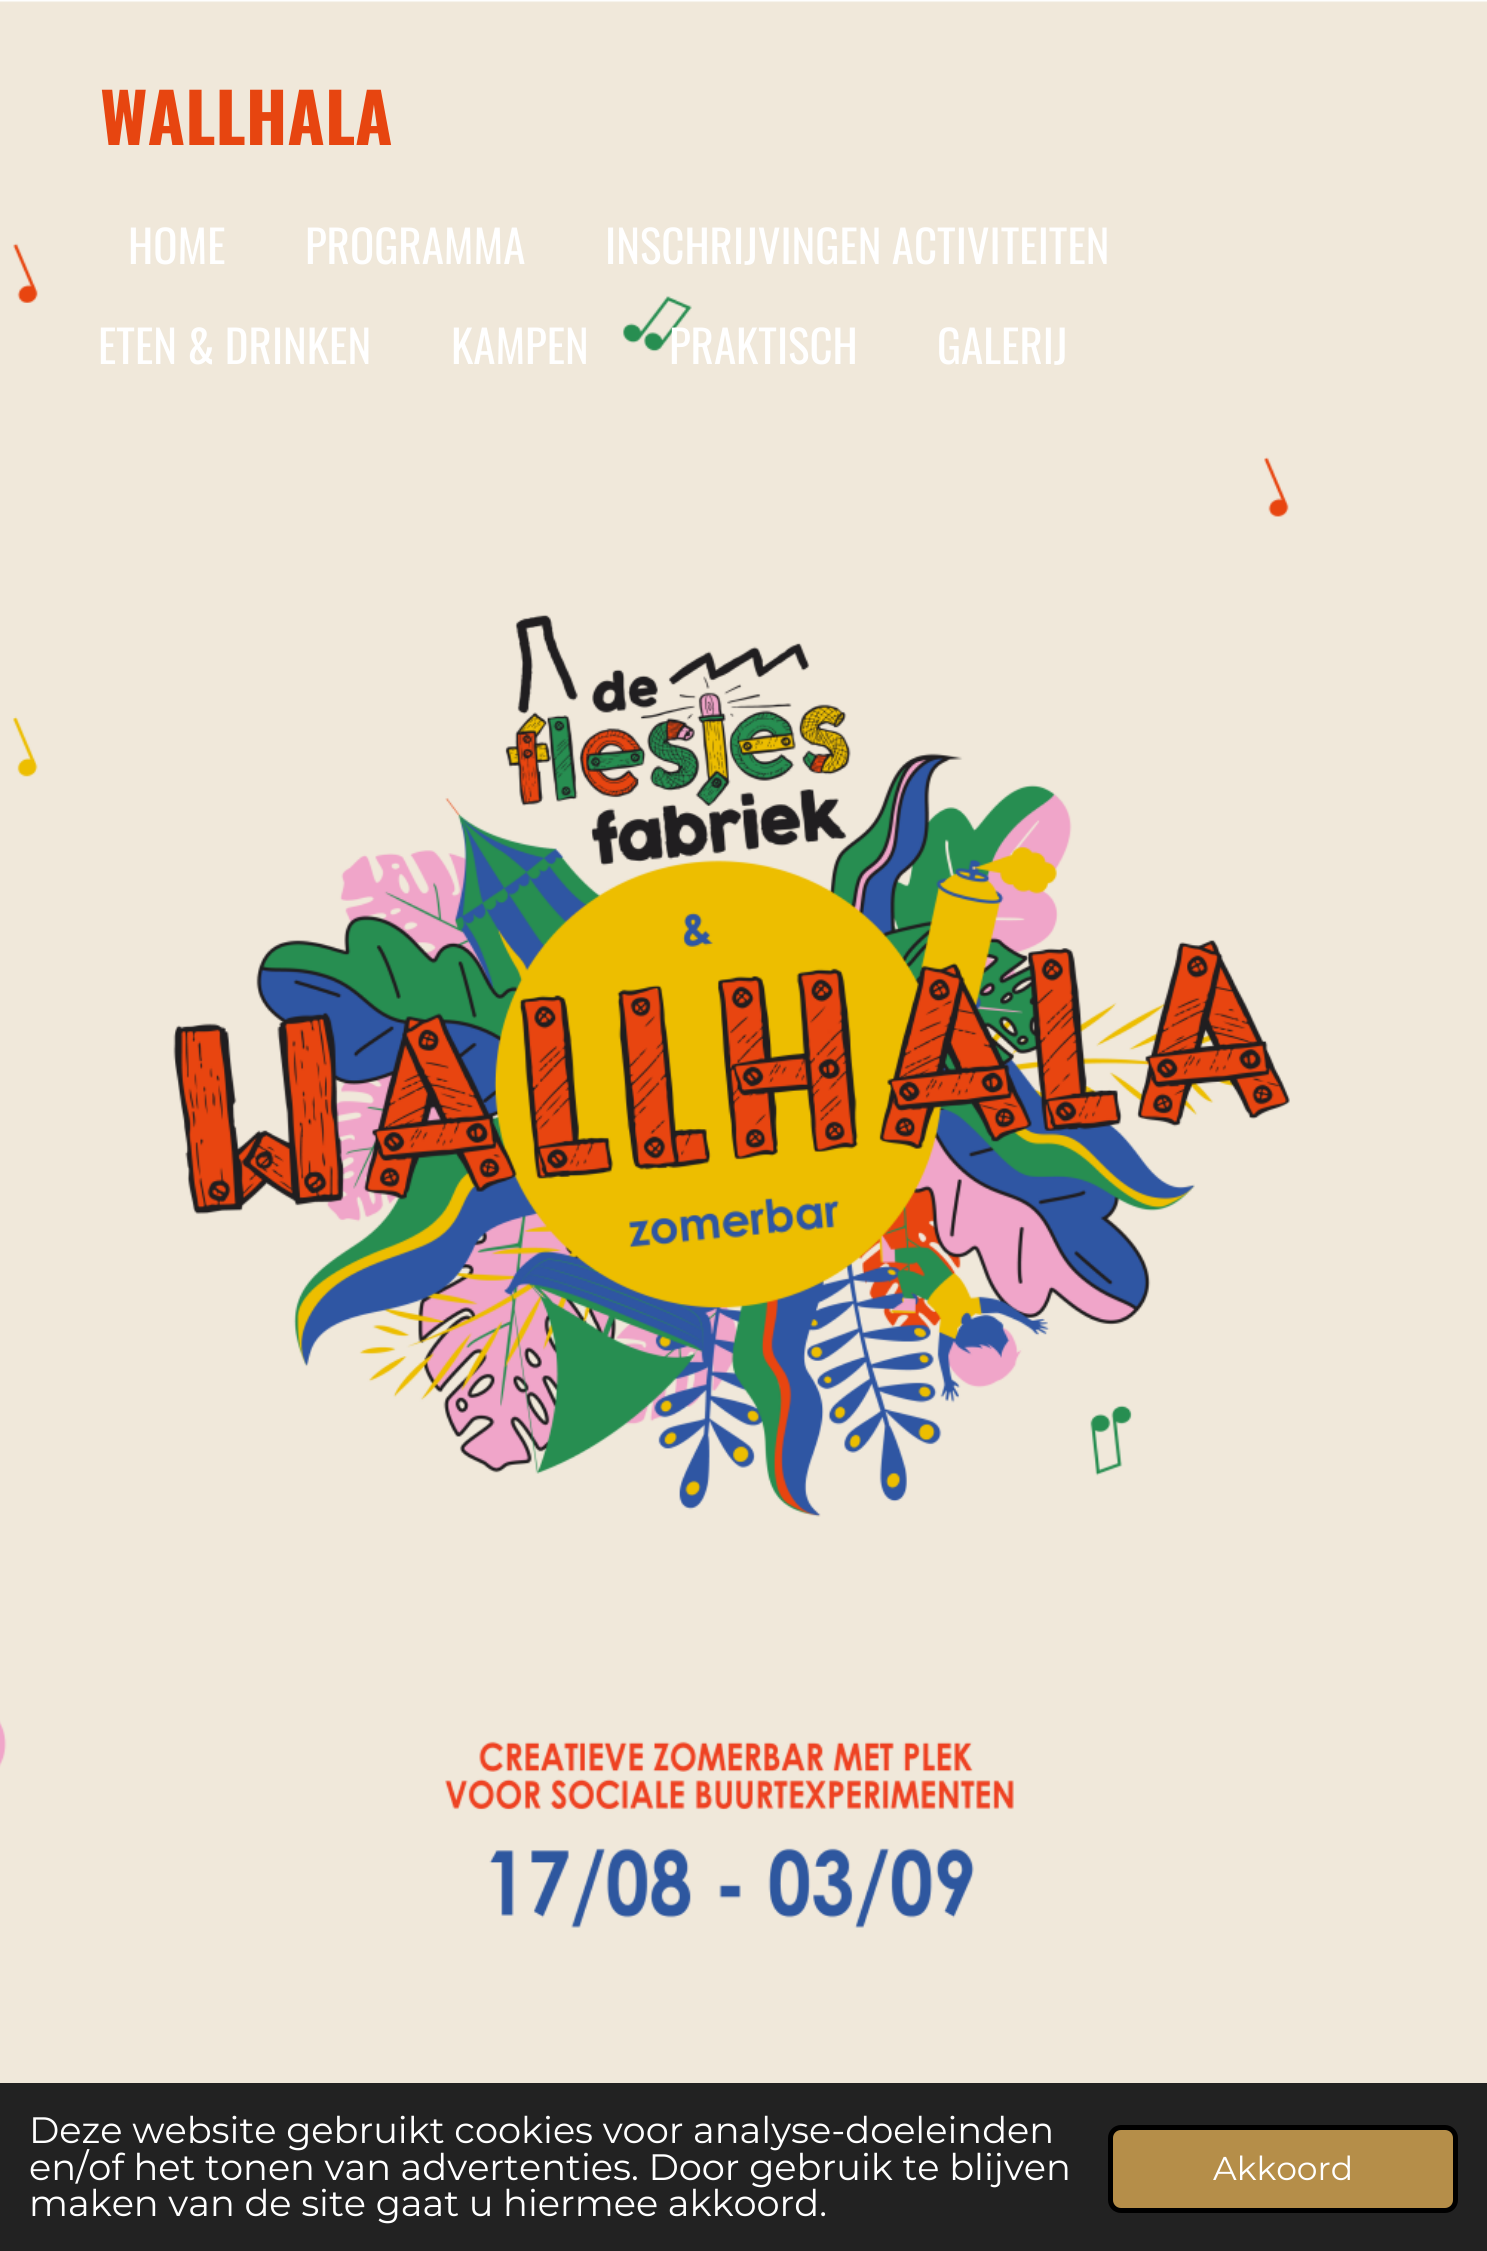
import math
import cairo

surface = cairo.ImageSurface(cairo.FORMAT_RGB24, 1487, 2251)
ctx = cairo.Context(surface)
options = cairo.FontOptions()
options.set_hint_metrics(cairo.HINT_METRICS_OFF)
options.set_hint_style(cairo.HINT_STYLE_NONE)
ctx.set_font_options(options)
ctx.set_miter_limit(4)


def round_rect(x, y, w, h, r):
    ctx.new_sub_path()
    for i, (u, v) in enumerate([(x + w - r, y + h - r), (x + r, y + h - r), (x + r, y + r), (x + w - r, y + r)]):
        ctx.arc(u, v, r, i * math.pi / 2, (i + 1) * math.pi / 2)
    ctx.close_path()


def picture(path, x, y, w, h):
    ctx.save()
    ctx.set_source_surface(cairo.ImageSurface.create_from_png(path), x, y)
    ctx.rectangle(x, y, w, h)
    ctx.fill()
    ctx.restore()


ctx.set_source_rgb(1, 1, 1)
ctx.paint()
picture("img1.png", 0, 0, 1487, 2083)
ctx.select_font_face("Oswald", cairo.FONT_SLANT_NORMAL, cairo.FONT_WEIGHT_BOLD)
ctx.set_font_size(68.25)
ctx.set_source_rgb(0.906, 0.271, 0.063)
ctx.move_to(100, 145)
ctx.show_text("WALLHALA")
ctx.select_font_face("Oswald")
ctx.set_font_size(45)
ctx.set_source_rgb(1, 1, 1)
ctx.move_to(128, 264)
ctx.show_text("HOME")
ctx.move_to(305, 264)
ctx.show_text("PROGRAMMA")
ctx.move_to(605, 264)
ctx.show_text("INSCHRIJVINGEN ACTIVITEITEN")
ctx.move_to(98, 364)
ctx.show_text("ETEN & DRINKEN")
ctx.move_to(451, 364)
ctx.show_text("KAMPEN")
ctx.move_to(669, 364)
ctx.show_text("PRAKTISCH")
ctx.move_to(937, 364)
ctx.show_text("GALERIJ")
ctx.set_source_rgb(0.133, 0.133, 0.133)
ctx.rectangle(0, 2083, 1487, 168)
ctx.fill()
ctx.select_font_face("Montserrat")
ctx.set_font_size(36.75)
ctx.set_source_rgb(1, 1, 1)
ctx.move_to(29, 2143)
ctx.show_text("Deze website gebruikt cookies voor analyse-doeleinden")
ctx.move_to(29, 2180)
ctx.show_text("en/of het tonen van advertenties. Door gebruik te blijven")
ctx.move_to(29, 2216)
ctx.show_text("maken van de site gaat u hiermee akkoord.")
ctx.set_source_rgb(0.71, 0.557, 0.286)
round_rect(1110.5, 2127.5, 345, 83, 10.5)
ctx.fill_preserve()
ctx.set_source_rgb(0, 0, 0)
ctx.set_line_width(5)
ctx.stroke()
ctx.set_font_size(33)
ctx.set_source_rgb(1, 1, 1)
ctx.move_to(1213, 2180)
ctx.show_text("Akkoord")
surface.write_to_png("page.png")
